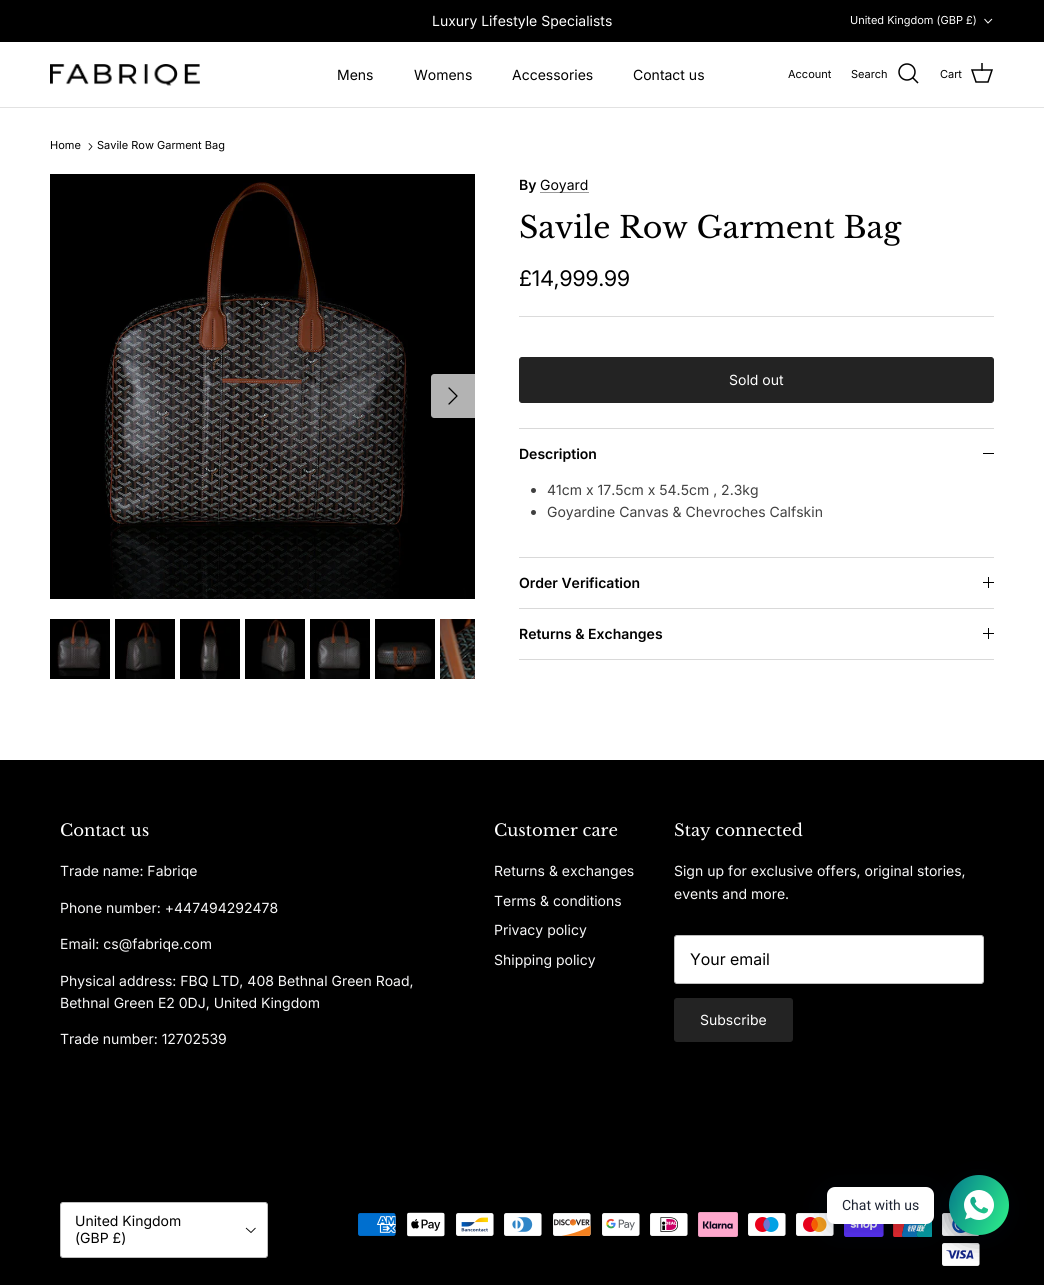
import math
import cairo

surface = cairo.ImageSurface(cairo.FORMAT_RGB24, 1044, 1285)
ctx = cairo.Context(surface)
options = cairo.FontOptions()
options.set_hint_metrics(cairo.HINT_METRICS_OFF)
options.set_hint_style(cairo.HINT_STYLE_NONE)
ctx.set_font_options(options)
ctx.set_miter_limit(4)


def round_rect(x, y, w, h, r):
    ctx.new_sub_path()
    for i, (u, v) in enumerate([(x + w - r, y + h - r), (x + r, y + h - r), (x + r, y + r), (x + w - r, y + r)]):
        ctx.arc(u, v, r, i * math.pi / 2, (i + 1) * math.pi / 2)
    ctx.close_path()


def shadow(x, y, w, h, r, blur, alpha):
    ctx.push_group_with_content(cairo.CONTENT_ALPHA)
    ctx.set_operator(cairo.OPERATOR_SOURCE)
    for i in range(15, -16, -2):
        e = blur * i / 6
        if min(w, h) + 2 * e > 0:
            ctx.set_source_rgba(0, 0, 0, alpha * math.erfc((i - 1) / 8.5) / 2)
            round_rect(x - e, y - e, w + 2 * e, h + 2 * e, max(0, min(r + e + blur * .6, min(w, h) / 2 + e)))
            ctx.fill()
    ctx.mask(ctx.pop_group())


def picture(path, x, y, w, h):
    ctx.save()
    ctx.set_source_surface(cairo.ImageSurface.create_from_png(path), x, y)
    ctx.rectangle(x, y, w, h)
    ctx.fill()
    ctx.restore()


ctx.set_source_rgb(1, 1, 1)
ctx.paint()
ctx.set_source_rgb(0, 0, 0)
ctx.rectangle(0, 0, 1044, 42)
ctx.fill()
ctx.select_font_face("Inter")
ctx.set_font_size(14)
ctx.set_source_rgb(1, 1, 1)
ctx.move_to(432, 26)
ctx.show_text("Luxury Lifestyle Specialists")
ctx.set_font_size(11)
ctx.move_to(850, 24)
ctx.show_text("United Kingdom (GBP £)")
ctx.new_path()
ctx.move_to(992, 19)
ctx.line_to(988, 23)
ctx.line_to(984.5, 19)
ctx.set_line_width(1)
ctx.stroke()
ctx.set_source_rgb(0.886, 0.886, 0.886)
ctx.rectangle(0, 107, 1044, 1)
ctx.fill()
picture("img1.png", 50, 64, 150, 22)
ctx.set_font_size(14)
ctx.set_source_rgb(0, 0, 0)
ctx.move_to(337, 80)
ctx.show_text("Mens")
ctx.move_to(414, 80)
ctx.show_text("Womens")
ctx.move_to(512, 80)
ctx.show_text("Accessories")
ctx.move_to(633, 80)
ctx.show_text("Contact us")
ctx.set_font_size(11)
ctx.move_to(788, 78)
ctx.show_text("Account")
ctx.move_to(851, 78)
ctx.show_text("Search")
ctx.new_path()
ctx.arc(907, 72, 8, 0, 2 * math.pi)
ctx.set_line_width(1.5)
ctx.stroke()
ctx.new_path()
ctx.move_to(913, 78)
ctx.line_to(917.5, 82.5)
ctx.set_line_cap(cairo.LINE_CAP_SQUARE)
ctx.stroke()
ctx.move_to(940, 78)
ctx.show_text("Cart")
ctx.new_path()
ctx.move_to(972, 70)
ctx.line_to(992, 70)
ctx.line_to(988, 82)
ctx.line_to(976, 82)
ctx.close_path()
ctx.set_line_cap(cairo.LINE_CAP_BUTT)
ctx.stroke()
ctx.set_source_rgba(0, 0, 0, 0.75)
ctx.rectangle(981, 63, 2, 8)
ctx.fill()
ctx.set_source_rgb(0, 0, 0)
ctx.move_to(50, 149)
ctx.show_text("Home")
ctx.new_path()
ctx.move_to(89, 150)
ctx.line_to(92, 146.5)
ctx.line_to(89, 143.5)
ctx.set_line_width(0.8)
ctx.set_line_cap(cairo.LINE_CAP_ROUND)
ctx.set_line_join(cairo.LINE_JOIN_ROUND)
ctx.stroke()
ctx.move_to(97, 149)
ctx.show_text("Savile Row Garment Bag")
picture("img2.png", 50, 174, 425, 425)
ctx.set_source_rgb(0.702, 0.702, 0.702)
ctx.new_path()
ctx.move_to(434, 374)
ctx.line_to(475, 374)
ctx.line_to(475, 418)
ctx.line_to(434, 418)
ctx.curve_to(432.5, 418, 431, 416.5, 431, 415)
ctx.line_to(431, 377)
ctx.curve_to(431, 375.5, 432.5, 374, 434, 374)
ctx.close_path()
ctx.fill()
ctx.new_path()
ctx.move_to(449, 404)
ctx.line_to(457, 396)
ctx.line_to(449, 388)
ctx.set_source_rgb(0, 0, 0)
ctx.set_line_width(1.3)
ctx.stroke()
picture("img3.png", 50, 619, 60, 57)
ctx.rectangle(50, 676, 60, 3)
ctx.fill()
picture("img4.png", 115, 619, 60, 60)
picture("img5.png", 180, 619, 60, 60)
picture("img6.png", 245, 619, 60, 60)
picture("img7.png", 310, 619, 60, 60)
picture("img8.png", 375, 619, 60, 60)
picture("img9.png", 440, 619, 35, 60)
ctx.select_font_face("Inter SemiBold")
ctx.set_font_size(14)
ctx.move_to(519, 190)
ctx.show_text("By")
ctx.set_source_rgb(0.6, 0.6, 0.6)
ctx.rectangle(540, 192, 49, 1)
ctx.fill()
ctx.select_font_face("Inter")
ctx.set_source_rgb(0, 0, 0)
ctx.move_to(540, 190)
ctx.show_text("Goyard")
ctx.select_font_face("Libre Baskerville")
ctx.set_font_size(30)
ctx.move_to(519, 238)
ctx.show_text("Savile Row Garment Bag")
ctx.select_font_face("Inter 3")
ctx.set_font_size(21.5)
ctx.move_to(519, 286)
ctx.show_text("£14,999.99")
ctx.set_source_rgb(0.859, 0.859, 0.859)
ctx.rectangle(519, 316, 475, 1)
ctx.fill()
ctx.set_source_rgb(0.137, 0.137, 0.137)
round_rect(519.5, 357.5, 474, 45, 2.5)
ctx.fill_preserve()
ctx.set_line_width(1)
ctx.set_line_cap(cairo.LINE_CAP_BUTT)
ctx.set_line_join(cairo.LINE_JOIN_MITER)
ctx.stroke()
ctx.select_font_face("Inter")
ctx.set_font_size(14)
ctx.set_source_rgb(1, 1, 1)
ctx.move_to(729, 385)
ctx.show_text("Sold out")
ctx.set_source_rgb(0.851, 0.851, 0.851)
ctx.rectangle(519, 428, 475, 1)
ctx.fill()
ctx.rectangle(519, 557, 475, 1)
ctx.fill()
ctx.select_font_face("Inter SemiBold")
ctx.set_source_rgb(0, 0, 0)
ctx.move_to(519, 459)
ctx.show_text("Description")
ctx.rectangle(983, 453, 11, 1)
ctx.fill()
ctx.set_source_rgb(0.251, 0.251, 0.251)
ctx.arc(533.5, 490.5, 2.5, 0, 2 * math.pi)
ctx.fill()
ctx.select_font_face("Inter")
ctx.move_to(547, 495)
ctx.show_text("41cm x 17.5cm x 54.5cm , 2.3kg")
ctx.new_path()
ctx.arc(533.5, 512.5, 2.5, 0, 2 * math.pi)
ctx.fill()
ctx.move_to(547, 517)
ctx.show_text("Goyardine Canvas & Chevroches Calfskin")
ctx.set_source_rgb(0.851, 0.851, 0.851)
ctx.rectangle(519, 608, 475, 1)
ctx.fill()
ctx.select_font_face("Inter SemiBold")
ctx.set_source_rgb(0, 0, 0)
ctx.move_to(519, 588)
ctx.show_text("Order Verification")
ctx.rectangle(988, 577, 1, 11)
ctx.fill()
ctx.rectangle(983, 582, 11, 1)
ctx.fill()
ctx.set_source_rgb(0.851, 0.851, 0.851)
ctx.rectangle(519, 659, 475, 1)
ctx.fill()
ctx.set_source_rgb(0, 0, 0)
ctx.move_to(519, 639)
ctx.show_text("Returns & Exchanges")
ctx.rectangle(988, 628, 1, 11)
ctx.fill()
ctx.rectangle(983, 633, 11, 1)
ctx.fill()
ctx.rectangle(0, 760, 1044, 525)
ctx.fill()
ctx.select_font_face("Libre Baskerville")
ctx.set_font_size(16.5)
ctx.set_source_rgb(1, 1, 1)
ctx.move_to(60, 836)
ctx.show_text("Contact us")
ctx.select_font_face("Inter")
ctx.set_font_size(14)
ctx.set_source_rgb(0.969, 0.969, 0.973)
ctx.move_to(60, 876)
ctx.show_text("Trade name: Fabriqe")
ctx.move_to(60, 913)
ctx.show_text("Phone number: +447494292478")
ctx.move_to(60, 949)
ctx.show_text("Email: cs@fabriqe.com")
ctx.move_to(60, 986)
ctx.show_text("Physical address: FBQ LTD, 408 Bethnal Green Road,")
ctx.move_to(60, 1008)
ctx.show_text("Bethnal Green E2 0DJ, United Kingdom")
ctx.move_to(60, 1044)
ctx.show_text("Trade number: 12702539")
ctx.select_font_face("Libre Baskerville")
ctx.set_font_size(16.5)
ctx.set_source_rgb(1, 1, 1)
ctx.move_to(494, 836)
ctx.show_text("Customer care")
ctx.select_font_face("Inter")
ctx.set_font_size(14)
ctx.set_source_rgb(0.969, 0.969, 0.973)
ctx.move_to(494, 876)
ctx.show_text("Returns & exchanges")
ctx.move_to(494, 906)
ctx.show_text("Terms & conditions")
ctx.move_to(494, 935)
ctx.show_text("Privacy policy")
ctx.move_to(494, 965)
ctx.show_text("Shipping policy")
ctx.select_font_face("Libre Baskerville")
ctx.set_font_size(16.5)
ctx.set_source_rgb(1, 1, 1)
ctx.move_to(674, 836)
ctx.show_text("Stay connected")
ctx.select_font_face("Inter")
ctx.set_font_size(14)
ctx.set_source_rgb(0.969, 0.969, 0.973)
ctx.move_to(674, 876)
ctx.show_text("Sign up for exclusive offers, original stories,")
ctx.move_to(674, 899)
ctx.show_text("events and more.")
ctx.set_source_rgb(1, 1, 1)
round_rect(674.5, 935.5, 309, 48, 2.5)
ctx.fill_preserve()
ctx.set_source_rgb(0.749, 0.749, 0.749)
ctx.stroke()
ctx.select_font_face("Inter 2")
ctx.set_font_size(16)
ctx.set_source_rgb(0, 0, 0)
ctx.move_to(690, 965)
ctx.show_text("Your email")
ctx.set_source_rgb(0.137, 0.137, 0.137)
round_rect(674.5, 998.5, 118, 43, 2.5)
ctx.fill_preserve()
ctx.stroke()
ctx.select_font_face("Inter")
ctx.set_font_size(14)
ctx.set_source_rgb(1, 1, 1)
ctx.move_to(700, 1025)
ctx.show_text("Subscribe")
round_rect(60.5, 1202.5, 207, 55, 2.5)
ctx.fill_preserve()
ctx.set_source_rgb(0.749, 0.749, 0.749)
ctx.stroke()
ctx.set_source_rgb(0, 0, 0)
ctx.move_to(75, 1226)
ctx.show_text("United Kingdom")
ctx.move_to(75, 1243)
ctx.show_text("(GBP £)")
ctx.new_path()
ctx.move_to(255.5, 1228)
ctx.line_to(251, 1232.5)
ctx.line_to(246, 1228)
ctx.set_line_width(0.9)
ctx.stroke()
picture("img10.png", 358, 1213, 38, 23)
picture("img11.png", 407, 1212, 38, 25)
picture("img12.png", 456, 1213, 38, 23)
picture("img13.png", 504, 1213, 38, 23)
picture("img14.png", 553, 1213, 38, 23)
picture("img15.png", 602, 1213, 38, 23)
picture("img16.png", 650, 1213, 38, 23)
picture("img17.png", 698, 1212, 40, 25)
picture("img18.png", 748, 1213, 38, 23)
picture("img19.png", 796, 1213, 38, 23)
picture("img20.png", 844, 1224, 40, 13)
picture("img21.png", 893, 1221, 39, 16)
picture("img22.png", 942, 1213, 38, 23)
picture("img23.png", 942, 1243, 38, 23)
ctx.set_source_rgb(0.008, 0.024, 0.063)
shadow(949, 1179, 60, 60, 30, 12, 0.5)
gradient = cairo.LinearGradient(943, 1188, 1015, 1222)
gradient.add_color_stop_rgba(0, 0.016, 0.486, 0.553, 1)
gradient.add_color_stop_rgba(1, 0.184, 0.949, 0.537, 1)
ctx.set_source(gradient)
ctx.arc(979, 1205, 30, 0, 2 * math.pi)
ctx.fill()
ctx.set_source_rgb(0, 0.071, 0.18)
shadow(827, 1193, 107, 37, 8, 16, 0.24)
ctx.set_source_rgb(1, 1, 1)
round_rect(827, 1187, 107, 37, 8)
ctx.fill()
ctx.select_font_face("Roboto")
ctx.set_source_rgb(0.118, 0.141, 0.2)
ctx.move_to(842, 1210)
ctx.show_text("Chat with us")
picture("img24.png", 964, 1190, 30, 30)
surface.write_to_png("page.png")
